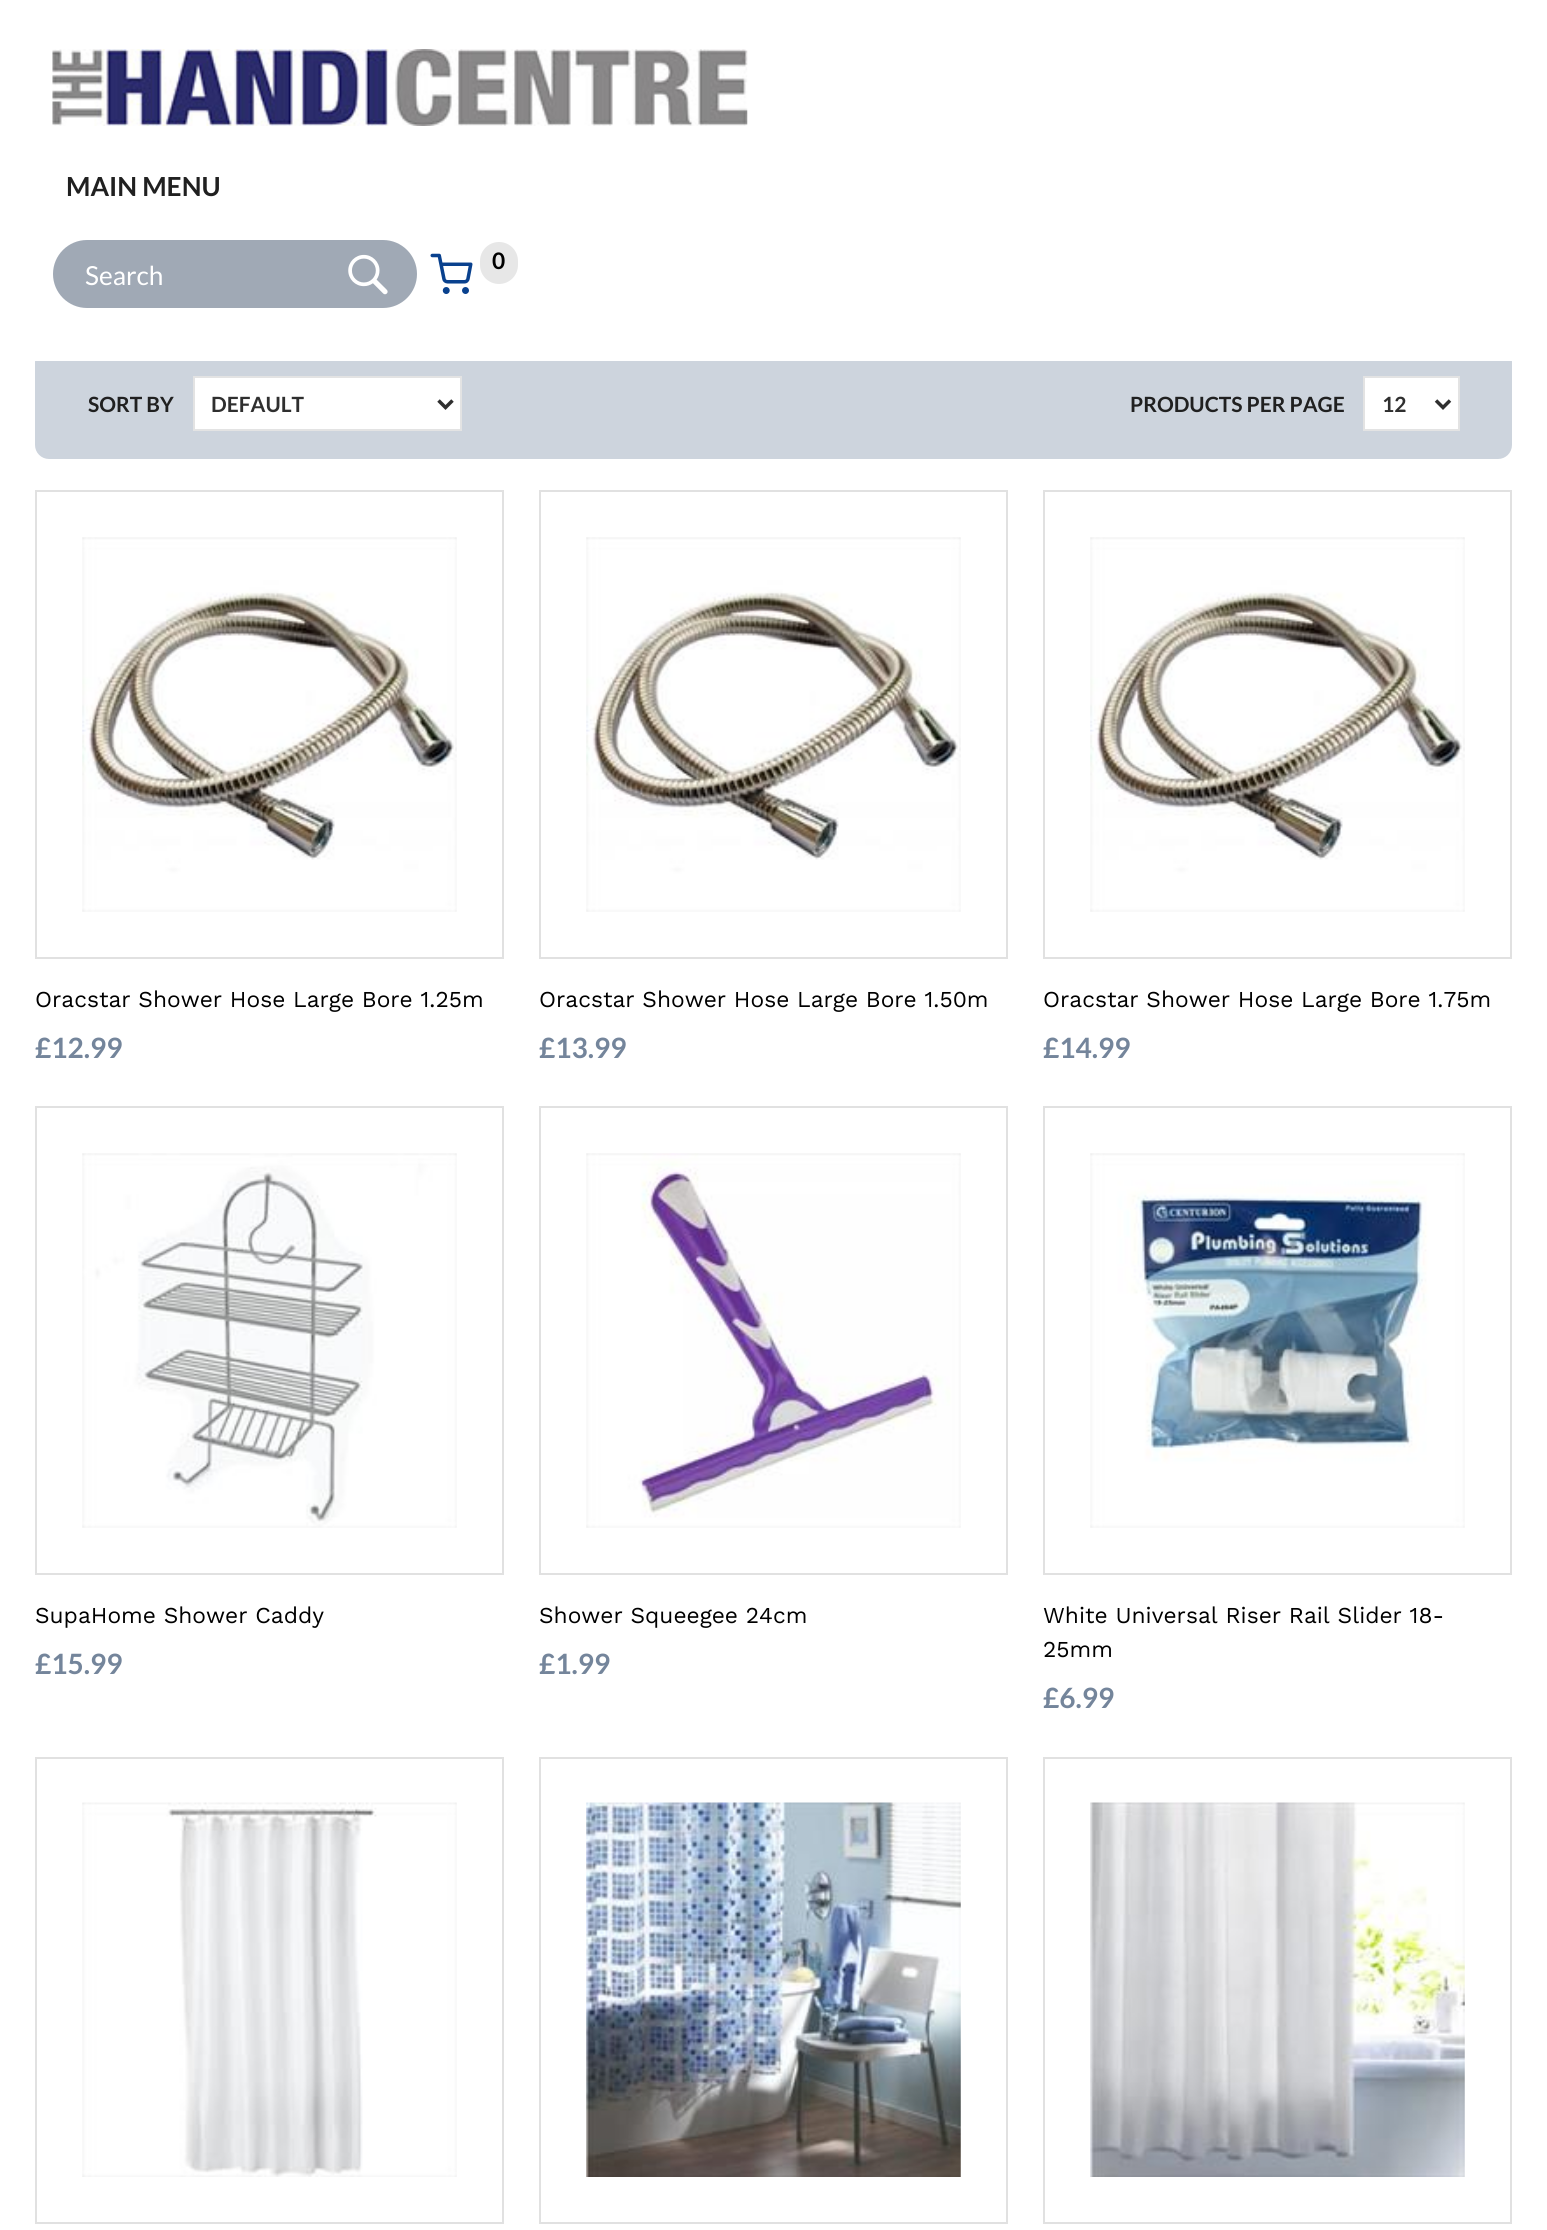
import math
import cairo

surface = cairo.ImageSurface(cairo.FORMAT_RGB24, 1547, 2230)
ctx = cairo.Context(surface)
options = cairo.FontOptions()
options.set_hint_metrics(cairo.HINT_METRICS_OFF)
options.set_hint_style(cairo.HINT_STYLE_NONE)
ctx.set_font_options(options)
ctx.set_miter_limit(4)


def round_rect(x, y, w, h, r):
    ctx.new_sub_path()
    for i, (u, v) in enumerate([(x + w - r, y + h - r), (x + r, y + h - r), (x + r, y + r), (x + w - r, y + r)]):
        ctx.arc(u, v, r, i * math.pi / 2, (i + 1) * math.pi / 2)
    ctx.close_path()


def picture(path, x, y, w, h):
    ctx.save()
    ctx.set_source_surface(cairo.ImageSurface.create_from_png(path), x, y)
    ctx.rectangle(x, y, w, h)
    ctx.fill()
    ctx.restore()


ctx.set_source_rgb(1, 1, 1)
ctx.paint()
ctx.set_source_rgb(0.804, 0.831, 0.867)
round_rect(35, 348, 1477, 111, 14)
ctx.fill()
ctx.set_source_rgb(1, 1, 1)
ctx.rectangle(35, 348, 1477, 13)
ctx.fill()
picture("img1.png", 52, 49, 696, 77)
ctx.select_font_face("Lato", cairo.FONT_SLANT_NORMAL, cairo.FONT_WEIGHT_BOLD)
ctx.set_font_size(26.25)
ctx.set_source_rgb(0.125, 0.125, 0.125)
ctx.move_to(66, 196)
ctx.show_text("MAIN MENU")
picture("img2.png", 430, 253, 43, 41)
ctx.set_source_rgb(0.906, 0.906, 0.906)
round_rect(480, 242, 38, 42, 19)
ctx.fill()
ctx.set_font_size(22.75)
ctx.set_source_rgb(0, 0, 0)
ctx.move_to(492, 269)
ctx.show_text("0")
ctx.set_source_rgb(0.627, 0.663, 0.71)
round_rect(53, 240, 364, 68, 34)
ctx.fill()
ctx.select_font_face("Lato")
ctx.set_font_size(26.25)
ctx.set_source_rgb(1, 1, 1)
ctx.move_to(85, 285)
ctx.show_text("Search")
picture("img3.png", 348, 254, 40, 41)
ctx.select_font_face("Lato", cairo.FONT_SLANT_NORMAL, cairo.FONT_WEIGHT_BOLD)
ctx.set_font_size(21)
ctx.set_source_rgb(0.125, 0.125, 0.125)
ctx.move_to(88, 412)
ctx.show_text("SORT BY")
ctx.set_source_rgb(1, 1, 1)
ctx.rectangle(194, 377, 267, 53)
ctx.fill_preserve()
ctx.set_source_rgb(0.89, 0.89, 0.89)
ctx.stroke()
ctx.new_path()
ctx.move_to(438.5, 400.5)
ctx.line_to(445.5, 407.5)
ctx.line_to(452.5, 400.5)
ctx.set_source_rgb(0.184, 0.184, 0.184)
ctx.set_line_width(3.5)
ctx.stroke()
ctx.move_to(211, 412)
ctx.show_text("DEFAULT")
ctx.set_source_rgb(0.125, 0.125, 0.125)
ctx.move_to(1130, 412)
ctx.show_text("PRODUCTS PER PAGE")
ctx.set_source_rgb(1, 1, 1)
ctx.rectangle(1364, 377, 95, 53)
ctx.fill_preserve()
ctx.set_source_rgb(0.89, 0.89, 0.89)
ctx.set_line_width(2)
ctx.stroke()
ctx.new_path()
ctx.move_to(1436, 400.5)
ctx.line_to(1443, 407.5)
ctx.line_to(1450, 400.5)
ctx.set_source_rgb(0.184, 0.184, 0.184)
ctx.set_line_width(3.5)
ctx.stroke()
ctx.move_to(1382, 412)
ctx.show_text("12")
ctx.rectangle(36, 491, 467, 467)
ctx.set_source_rgb(0.882, 0.882, 0.882)
ctx.set_line_width(2)
ctx.stroke()
picture("img4.png", 82, 537, 375, 375)
ctx.select_font_face("Work Sans")
ctx.set_font_size(22.75)
ctx.set_source_rgb(0, 0, 0)
ctx.move_to(35, 1007)
ctx.show_text("Oracstar Shower Hose Large Bore 1.25m")
ctx.select_font_face("Lato", cairo.FONT_SLANT_NORMAL, cairo.FONT_WEIGHT_BOLD)
ctx.set_font_size(28)
ctx.set_source_rgb(0.455, 0.522, 0.608)
ctx.move_to(35, 1058)
ctx.show_text("£12.99")
ctx.rectangle(540, 491, 467, 467)
ctx.set_source_rgb(0.882, 0.882, 0.882)
ctx.stroke()
picture("img5.png", 586, 537, 375, 375)
ctx.select_font_face("Work Sans")
ctx.set_font_size(22.75)
ctx.set_source_rgb(0, 0, 0)
ctx.move_to(539, 1007)
ctx.show_text("Oracstar Shower Hose Large Bore 1.50m")
ctx.select_font_face("Lato", cairo.FONT_SLANT_NORMAL, cairo.FONT_WEIGHT_BOLD)
ctx.set_font_size(28)
ctx.set_source_rgb(0.455, 0.522, 0.608)
ctx.move_to(539, 1058)
ctx.show_text("£13.99")
ctx.rectangle(1044, 491, 467, 467)
ctx.set_source_rgb(0.882, 0.882, 0.882)
ctx.stroke()
picture("img6.png", 1090, 537, 375, 375)
ctx.select_font_face("Work Sans")
ctx.set_font_size(22.75)
ctx.set_source_rgb(0, 0, 0)
ctx.move_to(1043, 1007)
ctx.show_text("Oracstar Shower Hose Large Bore 1.75m")
ctx.select_font_face("Lato", cairo.FONT_SLANT_NORMAL, cairo.FONT_WEIGHT_BOLD)
ctx.set_font_size(28)
ctx.set_source_rgb(0.455, 0.522, 0.608)
ctx.move_to(1043, 1058)
ctx.show_text("£14.99")
ctx.rectangle(36, 1107, 467, 467)
ctx.set_source_rgb(0.882, 0.882, 0.882)
ctx.stroke()
picture("img7.png", 82, 1153, 375, 375)
ctx.select_font_face("Work Sans")
ctx.set_font_size(22.75)
ctx.set_source_rgb(0, 0, 0)
ctx.move_to(35, 1623)
ctx.show_text("SupaHome Shower Caddy")
ctx.select_font_face("Lato", cairo.FONT_SLANT_NORMAL, cairo.FONT_WEIGHT_BOLD)
ctx.set_font_size(28)
ctx.set_source_rgb(0.455, 0.522, 0.608)
ctx.move_to(35, 1674)
ctx.show_text("£15.99")
ctx.rectangle(540, 1107, 467, 467)
ctx.set_source_rgb(0.882, 0.882, 0.882)
ctx.stroke()
picture("img8.png", 586, 1153, 375, 375)
ctx.select_font_face("Work Sans")
ctx.set_font_size(22.75)
ctx.set_source_rgb(0, 0, 0)
ctx.move_to(539, 1623)
ctx.show_text("Shower Squeegee 24cm")
ctx.select_font_face("Lato", cairo.FONT_SLANT_NORMAL, cairo.FONT_WEIGHT_BOLD)
ctx.set_font_size(28)
ctx.set_source_rgb(0.455, 0.522, 0.608)
ctx.move_to(539, 1674)
ctx.show_text("£1.99")
ctx.rectangle(1044, 1107, 467, 467)
ctx.set_source_rgb(0.882, 0.882, 0.882)
ctx.stroke()
picture("img9.png", 1090, 1153, 375, 375)
ctx.select_font_face("Work Sans")
ctx.set_font_size(22.75)
ctx.set_source_rgb(0, 0, 0)
ctx.move_to(1043, 1623)
ctx.show_text("White Universal Riser Rail Slider 18-")
ctx.move_to(1043, 1657)
ctx.show_text("25mm")
ctx.select_font_face("Lato", cairo.FONT_SLANT_NORMAL, cairo.FONT_WEIGHT_BOLD)
ctx.set_font_size(28)
ctx.set_source_rgb(0.455, 0.522, 0.608)
ctx.move_to(1043, 1708)
ctx.show_text("£6.99")
ctx.rectangle(36, 1758, 467, 465)
ctx.set_source_rgb(0.882, 0.882, 0.882)
ctx.stroke()
picture("img10.png", 82, 1802, 375, 375)
ctx.rectangle(540, 1758, 467, 465)
ctx.stroke()
picture("img11.png", 586, 1802, 375, 375)
ctx.rectangle(1044, 1758, 467, 465)
ctx.stroke()
picture("img12.png", 1090, 1802, 375, 375)
surface.write_to_png("page.png")
